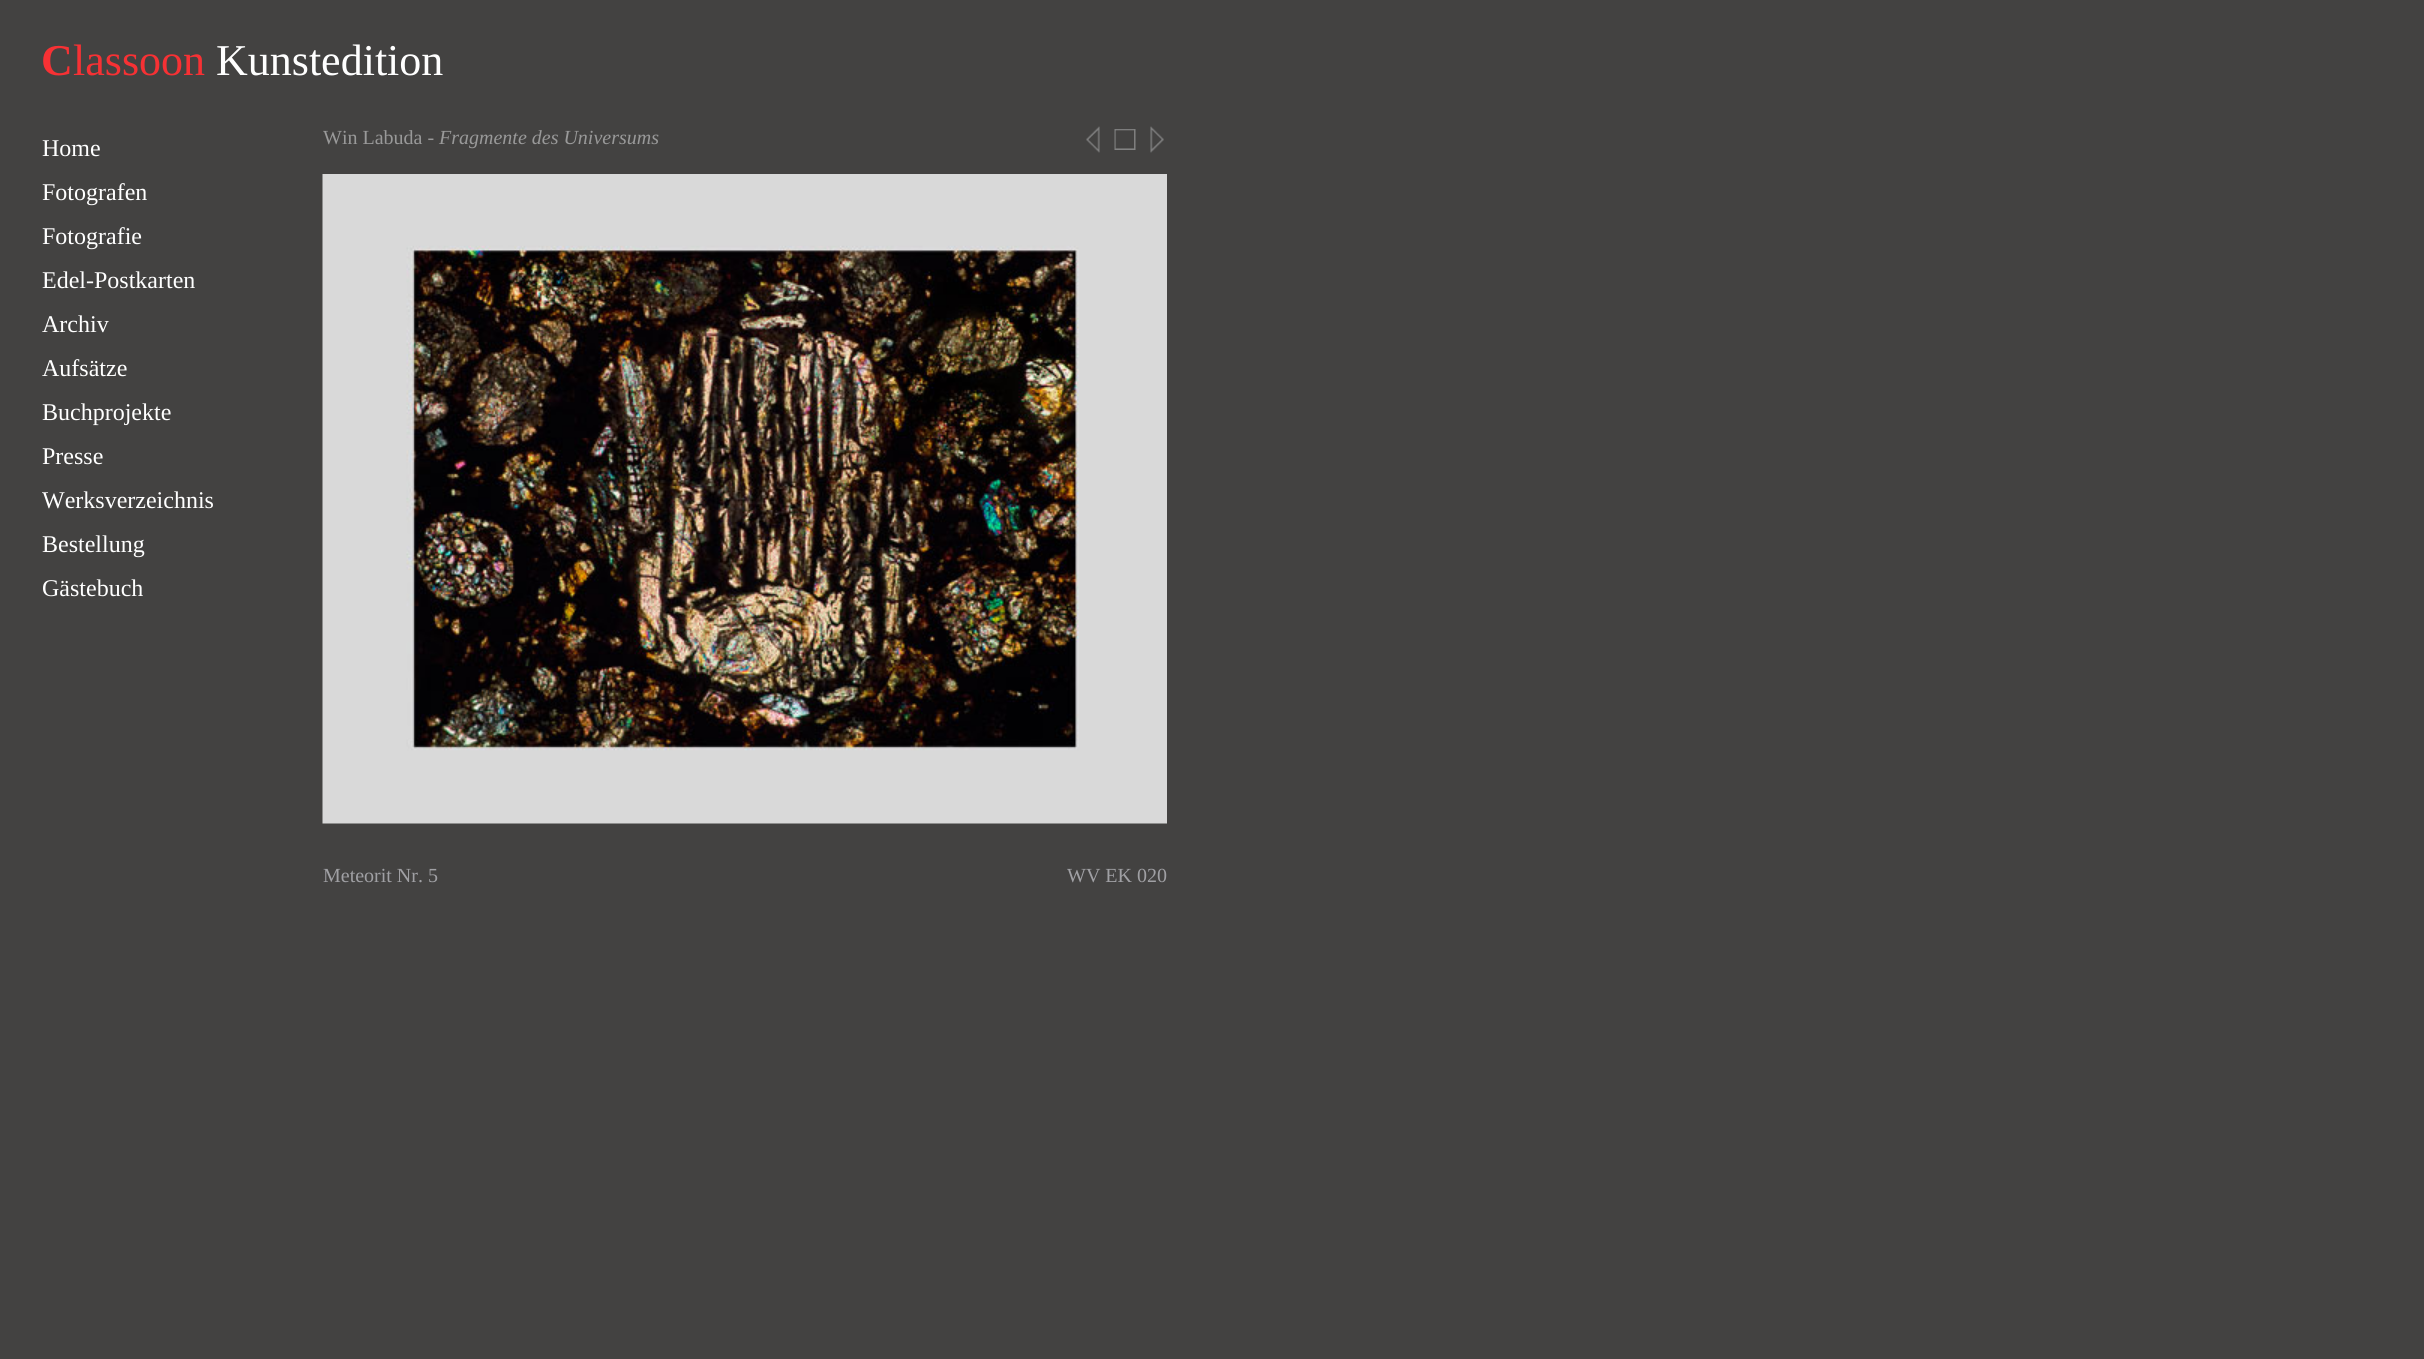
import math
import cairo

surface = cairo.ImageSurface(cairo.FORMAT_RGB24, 2424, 1359)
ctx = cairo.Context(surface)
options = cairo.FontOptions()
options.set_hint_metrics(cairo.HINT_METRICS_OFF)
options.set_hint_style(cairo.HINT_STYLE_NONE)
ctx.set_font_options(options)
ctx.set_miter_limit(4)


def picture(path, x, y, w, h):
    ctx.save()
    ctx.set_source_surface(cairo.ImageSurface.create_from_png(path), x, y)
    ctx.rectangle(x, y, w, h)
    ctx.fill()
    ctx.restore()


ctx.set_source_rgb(0.263, 0.259, 0.255)
ctx.paint()
ctx.select_font_face("Liberation Serif", cairo.FONT_SLANT_NORMAL, cairo.FONT_WEIGHT_BOLD)
ctx.set_font_size(44)
ctx.set_source_rgb(0.965, 0.192, 0.204)
ctx.move_to(41, 75)
ctx.show_text("C")
ctx.select_font_face("Liberation Serif")
ctx.move_to(73, 75)
ctx.show_text("lassoon")
ctx.set_source_rgb(1, 1, 1)
ctx.move_to(216, 75)
ctx.show_text("Kunstedition")
ctx.set_font_size(24)
ctx.move_to(42, 156)
ctx.show_text("Home")
ctx.move_to(42, 200)
ctx.show_text("Fotografen")
ctx.move_to(42, 244)
ctx.show_text("Fotografie")
ctx.move_to(42, 288)
ctx.show_text("Edel-Postkarten")
ctx.move_to(42, 332)
ctx.show_text("Archiv")
ctx.move_to(42, 376)
ctx.show_text("Aufsätze")
ctx.move_to(42, 420)
ctx.show_text("Buchprojekte")
ctx.move_to(42, 464)
ctx.show_text("Presse")
ctx.move_to(42, 508)
ctx.show_text("Werksverzeichnis")
ctx.move_to(42, 552)
ctx.show_text("Bestellung")
ctx.move_to(42, 596)
ctx.show_text("Gästebuch")
ctx.set_font_size(20)
ctx.set_source_rgb(0.6, 0.6, 0.6)
ctx.move_to(323, 144)
ctx.show_text("Win Labuda -")
ctx.select_font_face("Liberation Serif", cairo.FONT_SLANT_ITALIC)
ctx.move_to(439, 144)
ctx.show_text("Fragmente des Universums")
picture("img1.png", 1086, 126, 14, 27)
picture("img2.png", 1150, 126, 14, 27)
picture("img3.png", 1114, 129, 22, 21)
picture("img4.png", 322, 174, 845, 650)
ctx.select_font_face("Liberation Serif")
ctx.set_source_rgb(0.627, 0.627, 0.643)
ctx.move_to(323, 882)
ctx.show_text("Meteorit Nr. 5")
ctx.move_to(1067, 882)
ctx.show_text("WV EK 020")
surface.write_to_png("page.png")
